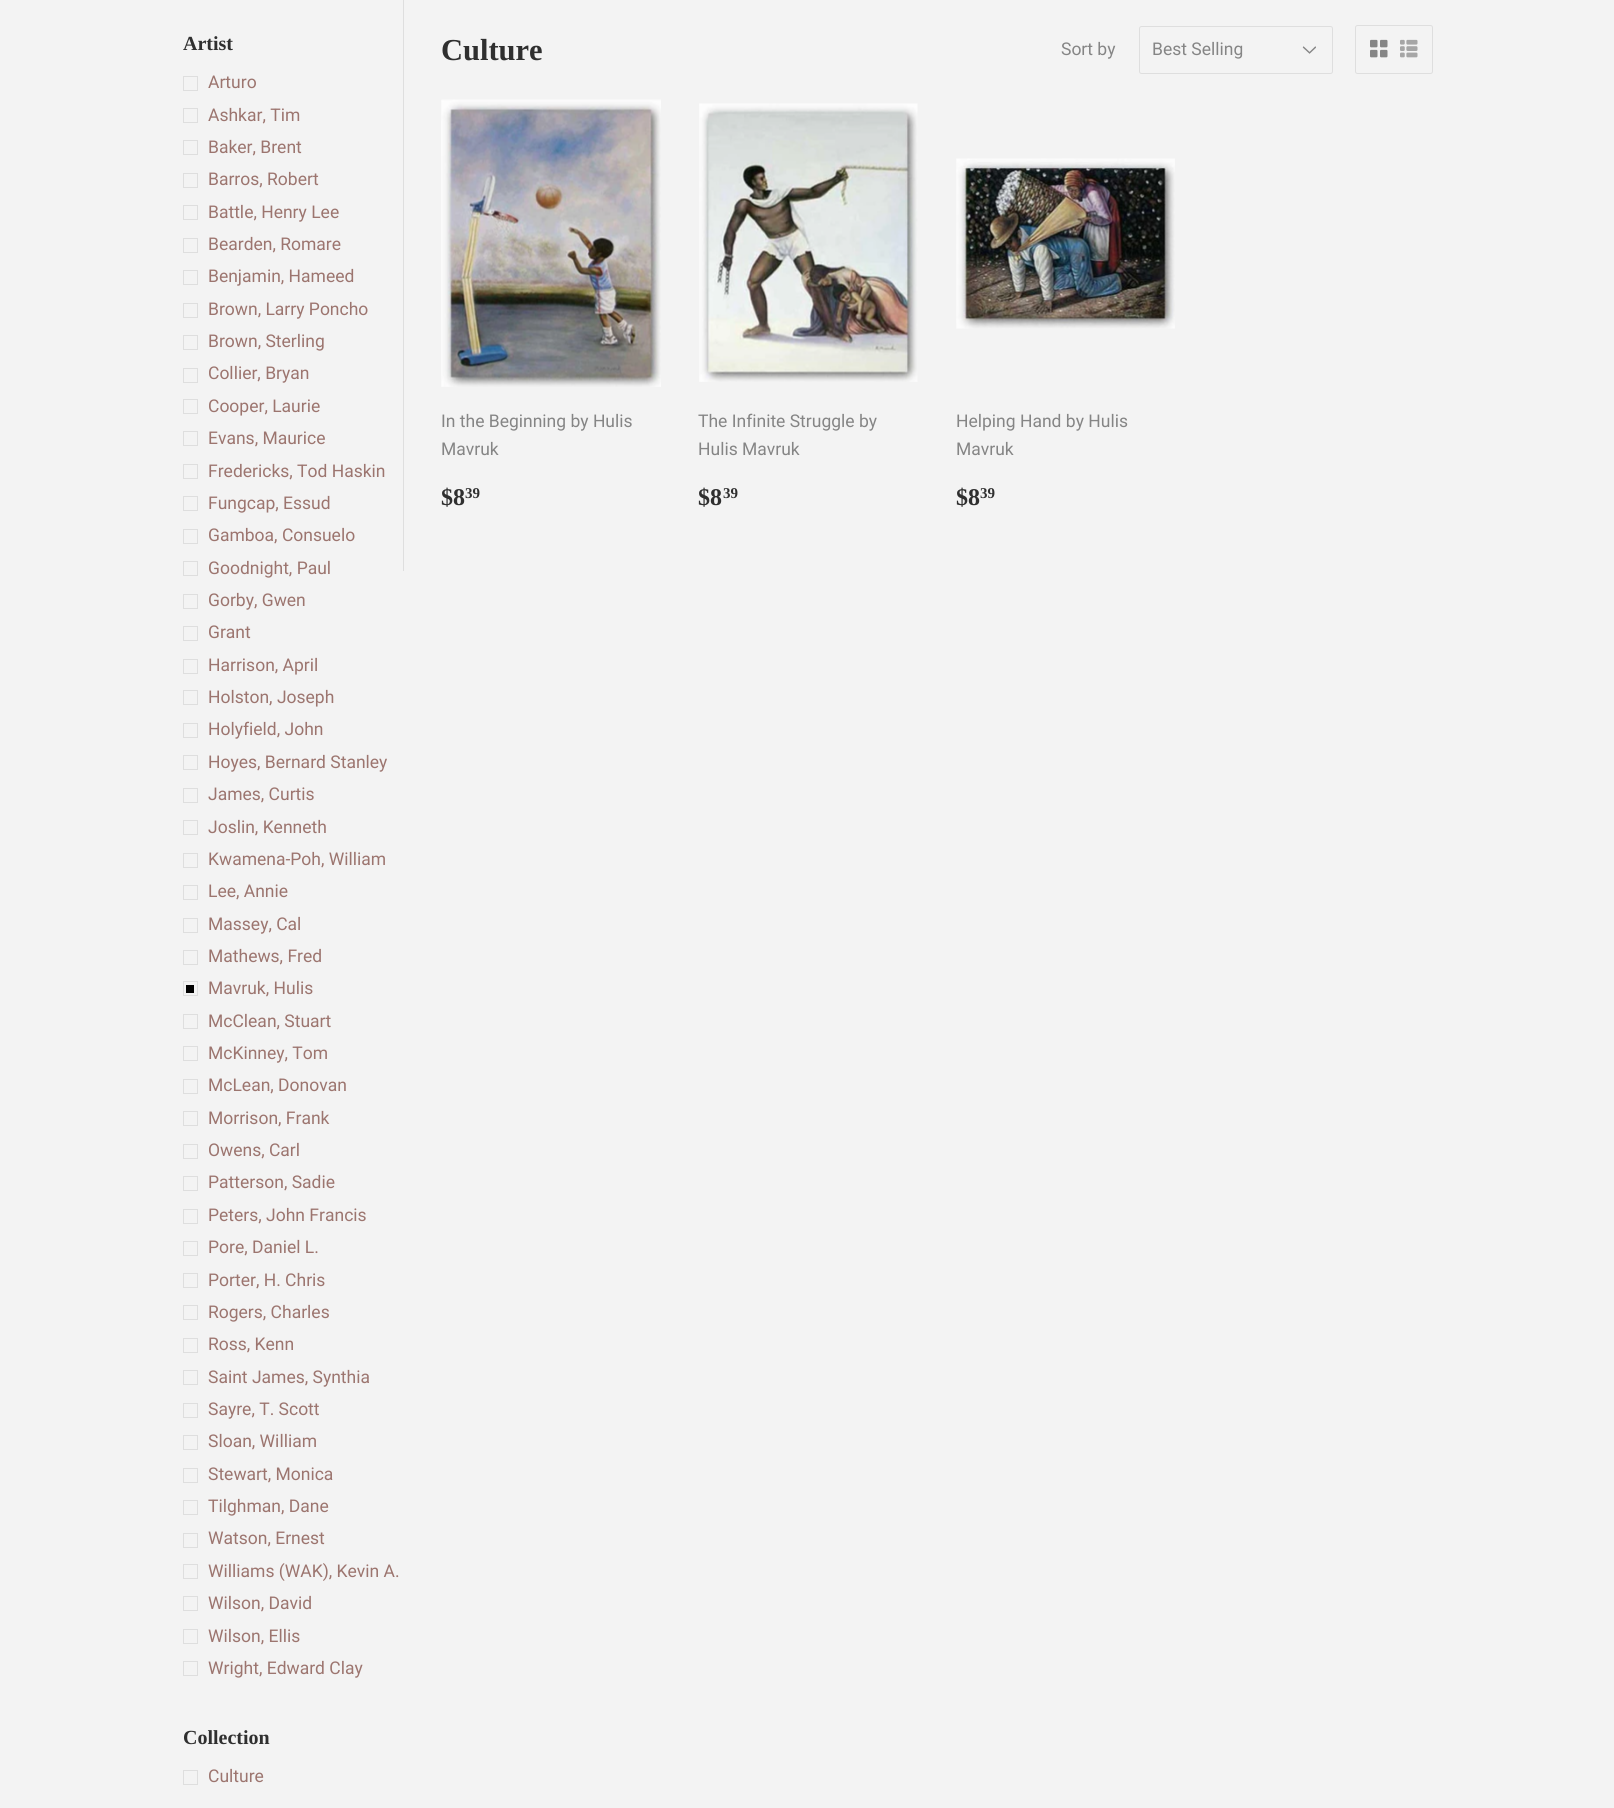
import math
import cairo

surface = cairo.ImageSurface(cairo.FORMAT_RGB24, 1614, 1808)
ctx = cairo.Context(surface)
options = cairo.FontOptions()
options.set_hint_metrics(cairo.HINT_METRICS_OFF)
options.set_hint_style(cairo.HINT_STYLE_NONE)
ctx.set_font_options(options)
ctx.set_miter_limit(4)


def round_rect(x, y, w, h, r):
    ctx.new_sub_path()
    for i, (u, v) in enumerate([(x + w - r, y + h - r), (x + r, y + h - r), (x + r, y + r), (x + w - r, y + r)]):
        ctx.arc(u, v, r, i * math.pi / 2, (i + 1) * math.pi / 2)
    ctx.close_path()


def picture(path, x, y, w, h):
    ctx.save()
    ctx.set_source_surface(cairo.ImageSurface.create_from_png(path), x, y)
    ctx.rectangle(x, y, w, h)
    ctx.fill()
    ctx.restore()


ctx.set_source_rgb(0.953, 0.953, 0.953)
ctx.paint()
ctx.select_font_face("Liberation Serif", cairo.FONT_SLANT_NORMAL, cairo.FONT_WEIGHT_BOLD)
ctx.set_font_size(20)
ctx.set_source_rgb(0.184, 0.184, 0.184)
ctx.move_to(183, 50)
ctx.show_text("Artist")
ctx.rectangle(183.5, 76.5, 14, 14)
ctx.set_source_rgb(0.871, 0.871, 0.871)
ctx.set_line_width(1)
ctx.stroke()
ctx.select_font_face("Roboto")
ctx.set_font_size(17.5)
ctx.set_source_rgb(0.612, 0.459, 0.435)
ctx.move_to(208, 88)
ctx.show_text("Arturo")
ctx.rectangle(183.5, 108.5, 14, 14)
ctx.set_source_rgb(0.871, 0.871, 0.871)
ctx.stroke()
ctx.set_source_rgb(0.612, 0.459, 0.435)
ctx.move_to(208, 121)
ctx.show_text("Ashkar, Tim")
ctx.rectangle(183.5, 140.5, 14, 14)
ctx.set_source_rgb(0.871, 0.871, 0.871)
ctx.stroke()
ctx.set_source_rgb(0.612, 0.459, 0.435)
ctx.move_to(208, 153)
ctx.show_text("Baker, Brent")
ctx.rectangle(183.5, 173.5, 14, 14)
ctx.set_source_rgb(0.871, 0.871, 0.871)
ctx.stroke()
ctx.set_source_rgb(0.612, 0.459, 0.435)
ctx.move_to(208, 185)
ctx.show_text("Barros, Robert")
ctx.rectangle(183.5, 205.5, 14, 14)
ctx.set_source_rgb(0.871, 0.871, 0.871)
ctx.stroke()
ctx.set_source_rgb(0.612, 0.459, 0.435)
ctx.move_to(208, 218)
ctx.show_text("Battle, Henry Lee")
ctx.rectangle(183.5, 238.5, 14, 14)
ctx.set_source_rgb(0.871, 0.871, 0.871)
ctx.stroke()
ctx.set_source_rgb(0.612, 0.459, 0.435)
ctx.move_to(208, 250)
ctx.show_text("Bearden, Romare")
ctx.rectangle(183.5, 270.5, 14, 14)
ctx.set_source_rgb(0.871, 0.871, 0.871)
ctx.stroke()
ctx.set_source_rgb(0.612, 0.459, 0.435)
ctx.move_to(208, 282)
ctx.show_text("Benjamin, Hameed")
ctx.rectangle(183.5, 303.5, 14, 14)
ctx.set_source_rgb(0.871, 0.871, 0.871)
ctx.stroke()
ctx.set_source_rgb(0.612, 0.459, 0.435)
ctx.move_to(208, 315)
ctx.show_text("Brown, Larry Poncho")
ctx.rectangle(183.5, 335.5, 14, 14)
ctx.set_source_rgb(0.871, 0.871, 0.871)
ctx.stroke()
ctx.set_source_rgb(0.612, 0.459, 0.435)
ctx.move_to(208, 347)
ctx.show_text("Brown, Sterling")
ctx.rectangle(183.5, 368.5, 14, 14)
ctx.set_source_rgb(0.871, 0.871, 0.871)
ctx.stroke()
ctx.set_source_rgb(0.612, 0.459, 0.435)
ctx.move_to(208, 379)
ctx.show_text("Collier, Bryan")
ctx.rectangle(183.5, 399.5, 14, 14)
ctx.set_source_rgb(0.871, 0.871, 0.871)
ctx.stroke()
ctx.set_source_rgb(0.612, 0.459, 0.435)
ctx.move_to(208, 412)
ctx.show_text("Cooper, Laurie")
ctx.rectangle(183.5, 431.5, 14, 14)
ctx.set_source_rgb(0.871, 0.871, 0.871)
ctx.stroke()
ctx.set_source_rgb(0.612, 0.459, 0.435)
ctx.move_to(208, 444)
ctx.show_text("Evans, Maurice")
ctx.rectangle(183.5, 464.5, 14, 14)
ctx.set_source_rgb(0.871, 0.871, 0.871)
ctx.stroke()
ctx.set_source_rgb(0.612, 0.459, 0.435)
ctx.move_to(208, 477)
ctx.show_text("Fredericks, Tod Haskin")
ctx.rectangle(183.5, 496.5, 14, 14)
ctx.set_source_rgb(0.871, 0.871, 0.871)
ctx.stroke()
ctx.set_source_rgb(0.612, 0.459, 0.435)
ctx.move_to(208, 509)
ctx.show_text("Fungcap, Essud")
ctx.rectangle(183.5, 529.5, 14, 14)
ctx.set_source_rgb(0.871, 0.871, 0.871)
ctx.stroke()
ctx.set_source_rgb(0.612, 0.459, 0.435)
ctx.move_to(208, 541)
ctx.show_text("Gamboa, Consuelo")
ctx.rectangle(183.5, 561.5, 14, 14)
ctx.set_source_rgb(0.871, 0.871, 0.871)
ctx.stroke()
ctx.set_source_rgb(0.612, 0.459, 0.435)
ctx.move_to(208, 574)
ctx.show_text("Goodnight, Paul")
ctx.rectangle(183.5, 594.5, 14, 14)
ctx.set_source_rgb(0.871, 0.871, 0.871)
ctx.stroke()
ctx.set_source_rgb(0.612, 0.459, 0.435)
ctx.move_to(208, 606)
ctx.show_text("Gorby, Gwen")
ctx.rectangle(183.5, 626.5, 14, 14)
ctx.set_source_rgb(0.871, 0.871, 0.871)
ctx.stroke()
ctx.set_source_rgb(0.612, 0.459, 0.435)
ctx.move_to(208, 638)
ctx.show_text("Grant")
ctx.rectangle(183.5, 659.5, 14, 14)
ctx.set_source_rgb(0.871, 0.871, 0.871)
ctx.stroke()
ctx.set_source_rgb(0.612, 0.459, 0.435)
ctx.move_to(208, 671)
ctx.show_text("Harrison, April")
ctx.rectangle(183.5, 690.5, 14, 14)
ctx.set_source_rgb(0.871, 0.871, 0.871)
ctx.stroke()
ctx.set_source_rgb(0.612, 0.459, 0.435)
ctx.move_to(208, 703)
ctx.show_text("Holston, Joseph")
ctx.rectangle(183.5, 723.5, 14, 14)
ctx.set_source_rgb(0.871, 0.871, 0.871)
ctx.stroke()
ctx.set_source_rgb(0.612, 0.459, 0.435)
ctx.move_to(208, 735)
ctx.show_text("Holyfield, John")
ctx.rectangle(183.5, 755.5, 14, 14)
ctx.set_source_rgb(0.871, 0.871, 0.871)
ctx.stroke()
ctx.set_source_rgb(0.612, 0.459, 0.435)
ctx.move_to(208, 768)
ctx.show_text("Hoyes, Bernard Stanley")
ctx.rectangle(183.5, 788.5, 14, 14)
ctx.set_source_rgb(0.871, 0.871, 0.871)
ctx.stroke()
ctx.set_source_rgb(0.612, 0.459, 0.435)
ctx.move_to(208, 800)
ctx.show_text("James, Curtis")
ctx.rectangle(183.5, 820.5, 14, 14)
ctx.set_source_rgb(0.871, 0.871, 0.871)
ctx.stroke()
ctx.set_source_rgb(0.612, 0.459, 0.435)
ctx.move_to(208, 833)
ctx.show_text("Joslin, Kenneth")
ctx.rectangle(183.5, 853.5, 14, 14)
ctx.set_source_rgb(0.871, 0.871, 0.871)
ctx.stroke()
ctx.set_source_rgb(0.612, 0.459, 0.435)
ctx.move_to(208, 865)
ctx.show_text("Kwamena-Poh, William")
ctx.rectangle(183.5, 885.5, 14, 14)
ctx.set_source_rgb(0.871, 0.871, 0.871)
ctx.stroke()
ctx.set_source_rgb(0.612, 0.459, 0.435)
ctx.move_to(208, 897)
ctx.show_text("Lee, Annie")
ctx.rectangle(183.5, 918.5, 14, 14)
ctx.set_source_rgb(0.871, 0.871, 0.871)
ctx.stroke()
ctx.set_source_rgb(0.612, 0.459, 0.435)
ctx.move_to(208, 930)
ctx.show_text("Massey, Cal")
ctx.rectangle(183.5, 950.5, 14, 14)
ctx.set_source_rgb(0.871, 0.871, 0.871)
ctx.stroke()
ctx.set_source_rgb(0.612, 0.459, 0.435)
ctx.move_to(208, 962)
ctx.show_text("Mathews, Fred")
ctx.rectangle(183.5, 981.5, 14, 14)
ctx.set_source_rgb(0.871, 0.871, 0.871)
ctx.stroke()
ctx.set_source_rgb(0.612, 0.459, 0.435)
ctx.move_to(208, 994)
ctx.show_text("Mavruk, Hulis")
ctx.set_source_rgb(0, 0, 0)
ctx.rectangle(186, 985, 8, 8)
ctx.fill()
ctx.rectangle(183.5, 1014.5, 14, 14)
ctx.set_source_rgb(0.871, 0.871, 0.871)
ctx.stroke()
ctx.set_source_rgb(0.612, 0.459, 0.435)
ctx.move_to(208, 1027)
ctx.show_text("McClean, Stuart")
ctx.rectangle(183.5, 1046.5, 14, 14)
ctx.set_source_rgb(0.871, 0.871, 0.871)
ctx.stroke()
ctx.set_source_rgb(0.612, 0.459, 0.435)
ctx.move_to(208, 1059)
ctx.show_text("McKinney, Tom")
ctx.rectangle(183.5, 1079.5, 14, 14)
ctx.set_source_rgb(0.871, 0.871, 0.871)
ctx.stroke()
ctx.set_source_rgb(0.612, 0.459, 0.435)
ctx.move_to(208, 1091)
ctx.show_text("McLean, Donovan")
ctx.rectangle(183.5, 1111.5, 14, 14)
ctx.set_source_rgb(0.871, 0.871, 0.871)
ctx.stroke()
ctx.set_source_rgb(0.612, 0.459, 0.435)
ctx.move_to(208, 1124)
ctx.show_text("Morrison, Frank")
ctx.rectangle(183.5, 1144.5, 14, 14)
ctx.set_source_rgb(0.871, 0.871, 0.871)
ctx.stroke()
ctx.set_source_rgb(0.612, 0.459, 0.435)
ctx.move_to(208, 1156)
ctx.show_text("Owens, Carl")
ctx.rectangle(183.5, 1176.5, 14, 14)
ctx.set_source_rgb(0.871, 0.871, 0.871)
ctx.stroke()
ctx.set_source_rgb(0.612, 0.459, 0.435)
ctx.move_to(208, 1188)
ctx.show_text("Patterson, Sadie")
ctx.rectangle(183.5, 1209.5, 14, 14)
ctx.set_source_rgb(0.871, 0.871, 0.871)
ctx.stroke()
ctx.set_source_rgb(0.612, 0.459, 0.435)
ctx.move_to(208, 1221)
ctx.show_text("Peters, John Francis")
ctx.rectangle(183.5, 1241.5, 14, 14)
ctx.set_source_rgb(0.871, 0.871, 0.871)
ctx.stroke()
ctx.set_source_rgb(0.612, 0.459, 0.435)
ctx.move_to(208, 1253)
ctx.show_text("Pore, Daniel L.")
ctx.rectangle(183.5, 1273.5, 14, 14)
ctx.set_source_rgb(0.871, 0.871, 0.871)
ctx.stroke()
ctx.set_source_rgb(0.612, 0.459, 0.435)
ctx.move_to(208, 1286)
ctx.show_text("Porter, H. Chris")
ctx.rectangle(183.5, 1305.5, 14, 14)
ctx.set_source_rgb(0.871, 0.871, 0.871)
ctx.stroke()
ctx.set_source_rgb(0.612, 0.459, 0.435)
ctx.move_to(208, 1318)
ctx.show_text("Rogers, Charles")
ctx.rectangle(183.5, 1338.5, 14, 14)
ctx.set_source_rgb(0.871, 0.871, 0.871)
ctx.stroke()
ctx.set_source_rgb(0.612, 0.459, 0.435)
ctx.move_to(208, 1350)
ctx.show_text("Ross, Kenn")
ctx.rectangle(183.5, 1370.5, 14, 14)
ctx.set_source_rgb(0.871, 0.871, 0.871)
ctx.stroke()
ctx.set_source_rgb(0.612, 0.459, 0.435)
ctx.move_to(208, 1383)
ctx.show_text("Saint James, Synthia")
ctx.rectangle(183.5, 1403.5, 14, 14)
ctx.set_source_rgb(0.871, 0.871, 0.871)
ctx.stroke()
ctx.set_source_rgb(0.612, 0.459, 0.435)
ctx.move_to(208, 1415)
ctx.show_text("Sayre, T. Scott")
ctx.rectangle(183.5, 1435.5, 14, 14)
ctx.set_source_rgb(0.871, 0.871, 0.871)
ctx.stroke()
ctx.set_source_rgb(0.612, 0.459, 0.435)
ctx.move_to(208, 1447)
ctx.show_text("Sloan, William")
ctx.rectangle(183.5, 1468.5, 14, 14)
ctx.set_source_rgb(0.871, 0.871, 0.871)
ctx.stroke()
ctx.set_source_rgb(0.612, 0.459, 0.435)
ctx.move_to(208, 1480)
ctx.show_text("Stewart, Monica")
ctx.rectangle(183.5, 1500.5, 14, 14)
ctx.set_source_rgb(0.871, 0.871, 0.871)
ctx.stroke()
ctx.set_source_rgb(0.612, 0.459, 0.435)
ctx.move_to(208, 1512)
ctx.show_text("Tilghman, Dane")
ctx.rectangle(183.5, 1533.5, 14, 14)
ctx.set_source_rgb(0.871, 0.871, 0.871)
ctx.stroke()
ctx.set_source_rgb(0.612, 0.459, 0.435)
ctx.move_to(208, 1544)
ctx.show_text("Watson, Ernest")
ctx.rectangle(183.5, 1564.5, 14, 14)
ctx.set_source_rgb(0.871, 0.871, 0.871)
ctx.stroke()
ctx.set_source_rgb(0.612, 0.459, 0.435)
ctx.move_to(208, 1577)
ctx.show_text("Williams (WAK), Kevin A.")
ctx.rectangle(183.5, 1596.5, 14, 14)
ctx.set_source_rgb(0.871, 0.871, 0.871)
ctx.stroke()
ctx.set_source_rgb(0.612, 0.459, 0.435)
ctx.move_to(208, 1609)
ctx.show_text("Wilson, David")
ctx.rectangle(183.5, 1629.5, 14, 14)
ctx.set_source_rgb(0.871, 0.871, 0.871)
ctx.stroke()
ctx.set_source_rgb(0.612, 0.459, 0.435)
ctx.move_to(208, 1642)
ctx.show_text("Wilson, Ellis")
ctx.rectangle(183.5, 1661.5, 14, 14)
ctx.set_source_rgb(0.871, 0.871, 0.871)
ctx.stroke()
ctx.set_source_rgb(0.612, 0.459, 0.435)
ctx.move_to(208, 1674)
ctx.show_text("Wright, Edward Clay")
ctx.select_font_face("Liberation Serif", cairo.FONT_SLANT_NORMAL, cairo.FONT_WEIGHT_BOLD)
ctx.set_font_size(20)
ctx.set_source_rgb(0.184, 0.184, 0.184)
ctx.move_to(183, 1744)
ctx.show_text("Collection")
ctx.rectangle(183.5, 1770.5, 14, 14)
ctx.set_source_rgb(0.871, 0.871, 0.871)
ctx.stroke()
ctx.select_font_face("Roboto")
ctx.set_font_size(17.5)
ctx.set_source_rgb(0.612, 0.459, 0.435)
ctx.move_to(208, 1782)
ctx.show_text("Culture")
ctx.set_source_rgb(0.871, 0.871, 0.871)
ctx.rectangle(403, 0, 1, 571)
ctx.fill()
ctx.select_font_face("Liberation Serif", cairo.FONT_SLANT_NORMAL, cairo.FONT_WEIGHT_BOLD)
ctx.set_font_size(30.5)
ctx.set_source_rgb(0.184, 0.184, 0.184)
ctx.move_to(441, 60)
ctx.show_text("Culture")
ctx.select_font_face("Roboto")
ctx.set_font_size(17.5)
ctx.set_source_rgb(0.522, 0.522, 0.522)
ctx.move_to(1061, 55)
ctx.show_text("Sort by")
picture("img1.png", 1302, 46, 14, 8)
round_rect(1139.5, 26.5, 193, 47, 2)
ctx.set_source_rgb(0.871, 0.871, 0.871)
ctx.stroke()
ctx.set_source_rgb(0.522, 0.522, 0.522)
ctx.move_to(1152, 55)
ctx.show_text("Best Selling")
round_rect(1355.5, 25.5, 77, 48, 2)
ctx.set_source_rgb(0.871, 0.871, 0.871)
ctx.stroke()
picture("img2.png", 1370, 39, 18, 19)
picture("img3.png", 1400, 39, 18, 19)
picture("img4.png", 441, 99, 220, 288)
ctx.set_source_rgb(0.522, 0.522, 0.522)
ctx.move_to(441, 427)
ctx.show_text("In the Beginning by Hulis")
ctx.move_to(441, 455)
ctx.show_text("Mavruk")
ctx.select_font_face("Liberation Serif", cairo.FONT_SLANT_NORMAL, cairo.FONT_WEIGHT_BOLD)
ctx.set_font_size(24)
ctx.set_source_rgb(0.184, 0.184, 0.184)
ctx.move_to(441, 505)
ctx.show_text("$8")
ctx.set_font_size(15)
ctx.move_to(465, 498)
ctx.show_text("39")
picture("img5.png", 699, 103, 219, 279)
ctx.select_font_face("Roboto")
ctx.set_font_size(17.5)
ctx.set_source_rgb(0.522, 0.522, 0.522)
ctx.move_to(698, 427)
ctx.show_text("The Infinite Struggle by")
ctx.move_to(698, 455)
ctx.show_text("Hulis Mavruk")
ctx.select_font_face("Liberation Serif", cairo.FONT_SLANT_NORMAL, cairo.FONT_WEIGHT_BOLD)
ctx.set_font_size(24)
ctx.set_source_rgb(0.184, 0.184, 0.184)
ctx.move_to(698, 505)
ctx.show_text("$8")
ctx.set_font_size(15)
ctx.move_to(723, 498)
ctx.show_text("39")
picture("img6.png", 956, 158, 219, 171)
ctx.select_font_face("Roboto")
ctx.set_font_size(17.5)
ctx.set_source_rgb(0.522, 0.522, 0.522)
ctx.move_to(956, 427)
ctx.show_text("Helping Hand by Hulis")
ctx.move_to(956, 455)
ctx.show_text("Mavruk")
ctx.select_font_face("Liberation Serif", cairo.FONT_SLANT_NORMAL, cairo.FONT_WEIGHT_BOLD)
ctx.set_font_size(24)
ctx.set_source_rgb(0.184, 0.184, 0.184)
ctx.move_to(956, 505)
ctx.show_text("$8")
ctx.set_font_size(15)
ctx.move_to(980, 498)
ctx.show_text("39")
surface.write_to_png("page.png")
